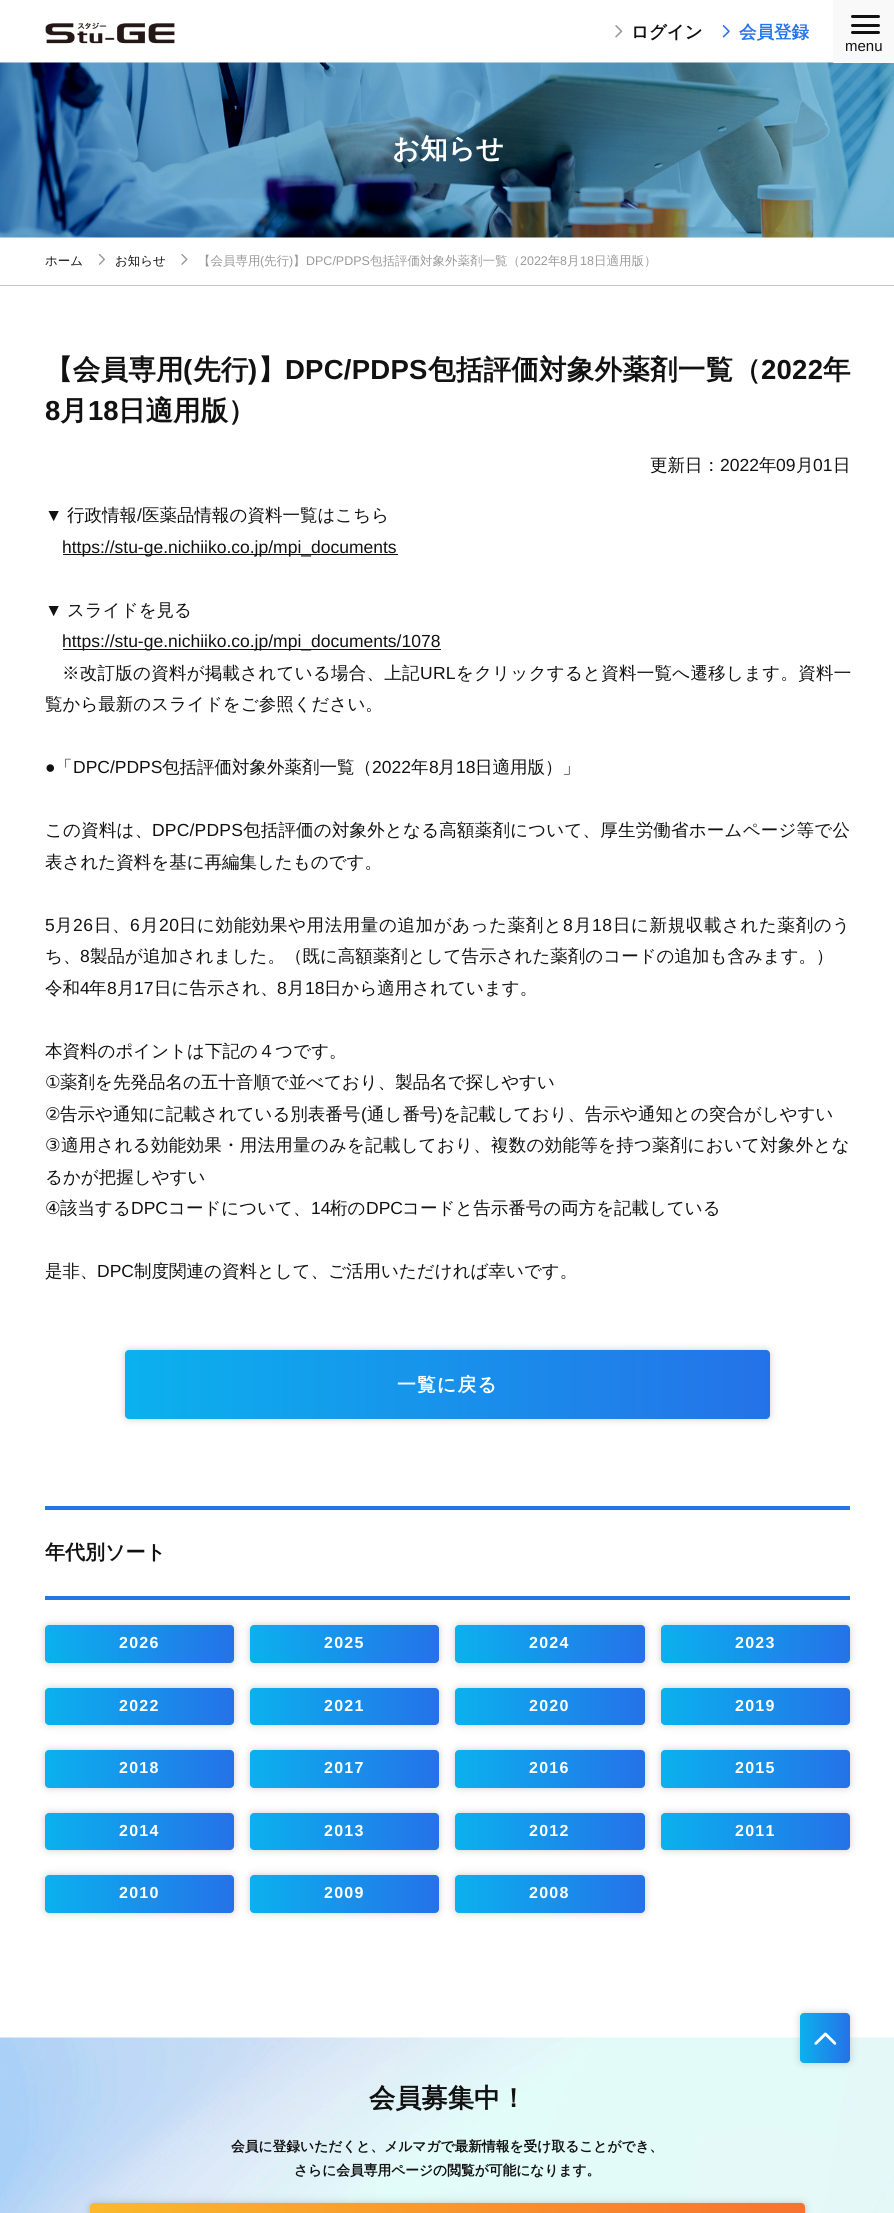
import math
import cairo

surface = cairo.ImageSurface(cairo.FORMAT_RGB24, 894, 2213)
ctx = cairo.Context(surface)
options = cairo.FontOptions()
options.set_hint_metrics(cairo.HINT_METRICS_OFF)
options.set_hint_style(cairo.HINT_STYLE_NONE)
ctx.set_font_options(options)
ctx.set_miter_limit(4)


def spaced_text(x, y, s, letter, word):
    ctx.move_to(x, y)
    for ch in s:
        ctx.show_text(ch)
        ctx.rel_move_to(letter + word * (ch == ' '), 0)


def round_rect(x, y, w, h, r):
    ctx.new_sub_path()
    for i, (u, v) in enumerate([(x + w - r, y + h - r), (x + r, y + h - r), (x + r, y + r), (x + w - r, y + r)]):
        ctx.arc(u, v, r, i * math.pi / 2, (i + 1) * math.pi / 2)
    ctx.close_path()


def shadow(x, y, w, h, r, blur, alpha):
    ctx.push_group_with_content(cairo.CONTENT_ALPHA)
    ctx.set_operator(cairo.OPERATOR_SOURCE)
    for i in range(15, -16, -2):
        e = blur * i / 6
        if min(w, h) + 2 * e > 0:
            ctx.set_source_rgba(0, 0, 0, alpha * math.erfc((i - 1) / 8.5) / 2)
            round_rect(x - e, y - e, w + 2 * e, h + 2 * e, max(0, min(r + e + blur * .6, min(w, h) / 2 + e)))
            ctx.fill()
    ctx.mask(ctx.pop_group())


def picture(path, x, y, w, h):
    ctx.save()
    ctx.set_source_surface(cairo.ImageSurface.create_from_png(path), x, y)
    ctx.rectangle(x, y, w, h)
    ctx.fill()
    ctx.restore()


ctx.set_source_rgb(1, 1, 1)
ctx.paint()
picture("img1.png", 45, 22, 130, 22)
picture("img2.png", 615, 25, 8, 13)
ctx.select_font_face("WenQuanYi Zen Hei", cairo.FONT_SLANT_NORMAL, cairo.FONT_WEIGHT_BOLD)
ctx.set_font_size(17.5)
ctx.set_source_rgb(0.067, 0.067, 0.067)
ctx.move_to(631, 38)
ctx.show_text("ログイン")
picture("img3.png", 722, 25, 8, 13)
ctx.set_source_rgb(0.145, 0.455, 0.91)
ctx.move_to(739, 38)
ctx.show_text("会員登録")
picture("img4.png", 0, 62, 894, 176)
ctx.set_source_rgb(0.976, 0.976, 0.976)
ctx.rectangle(833, 0, 61, 63)
ctx.fill()
ctx.set_source_rgb(0.067, 0.067, 0.067)
round_rect(851, 15, 29, 3, 1.5)
ctx.fill()
round_rect(851, 24, 29, 3, 1.5)
ctx.fill()
round_rect(851, 31, 29, 3, 1.5)
ctx.fill()
ctx.select_font_face("Liberation Sans")
ctx.set_font_size(15)
ctx.move_to(845, 51)
ctx.show_text("menu")
ctx.select_font_face("WenQuanYi Zen Hei", cairo.FONT_SLANT_NORMAL, cairo.FONT_WEIGHT_BOLD)
ctx.set_font_size(27.5)
ctx.set_source_rgb(1, 1, 1)
ctx.move_to(392, 158)
ctx.show_text("お知らせ")
ctx.set_source_rgb(0.769, 0.769, 0.769)
ctx.rectangle(0, 285, 894, 1)
ctx.fill()
ctx.select_font_face("WenQuanYi Zen Hei Medium")
ctx.set_font_size(12.5)
ctx.set_source_rgb(0.067, 0.067, 0.067)
ctx.move_to(45, 265)
ctx.show_text("ホーム")
picture("img5.png", 99, 254, 6, 11)
ctx.move_to(115, 265)
ctx.show_text("お知らせ")
picture("img6.png", 181, 254, 7, 11)
ctx.set_source_rgb(0.6, 0.6, 0.6)
ctx.move_to(198, 265)
ctx.show_text("【会員専用")
ctx.select_font_face("Liberation Sans")
ctx.move_to(260, 265)
ctx.show_text("(")
ctx.select_font_face("WenQuanYi Zen Hei Medium")
ctx.move_to(264, 265)
ctx.show_text("先行")
ctx.select_font_face("Liberation Sans")
ctx.move_to(289, 265)
ctx.show_text(")")
ctx.select_font_face("WenQuanYi Zen Hei Medium")
ctx.move_to(293, 265)
ctx.show_text("】")
ctx.select_font_face("Liberation Sans")
ctx.move_to(306, 265)
ctx.show_text("DPC/PDPS")
ctx.select_font_face("WenQuanYi Zen Hei Medium")
ctx.move_to(370, 265)
ctx.show_text("包括評価対象外薬剤一覧（")
ctx.select_font_face("Liberation Sans")
ctx.move_to(520, 265)
ctx.show_text("2022")
ctx.select_font_face("WenQuanYi Zen Hei Medium")
ctx.move_to(548, 265)
ctx.show_text("年")
ctx.select_font_face("Liberation Sans")
ctx.move_to(560, 265)
ctx.show_text("8")
ctx.select_font_face("WenQuanYi Zen Hei Medium")
ctx.move_to(567, 265)
ctx.show_text("月")
ctx.select_font_face("Liberation Sans")
ctx.move_to(580, 265)
ctx.show_text("18")
ctx.select_font_face("WenQuanYi Zen Hei Medium")
ctx.move_to(594, 265)
ctx.show_text("日適用版）")
ctx.select_font_face("WenQuanYi Zen Hei", cairo.FONT_SLANT_NORMAL, cairo.FONT_WEIGHT_BOLD)
ctx.set_font_size(27.5)
ctx.set_source_rgb(0.067, 0.067, 0.067)
spaced_text(45, 379, "【会員専用", 0.25, 0)
ctx.select_font_face("Liberation Sans", cairo.FONT_SLANT_NORMAL, cairo.FONT_WEIGHT_BOLD)
spaced_text(183, 379, "(", 0.25, 0)
ctx.select_font_face("WenQuanYi Zen Hei", cairo.FONT_SLANT_NORMAL, cairo.FONT_WEIGHT_BOLD)
spaced_text(193, 379, "先行", 0.25, 0)
ctx.select_font_face("Liberation Sans", cairo.FONT_SLANT_NORMAL, cairo.FONT_WEIGHT_BOLD)
spaced_text(248, 379, ")", 0.25, 0)
ctx.select_font_face("WenQuanYi Zen Hei", cairo.FONT_SLANT_NORMAL, cairo.FONT_WEIGHT_BOLD)
spaced_text(258, 379, "】", 0.25, 0)
ctx.select_font_face("Liberation Sans", cairo.FONT_SLANT_NORMAL, cairo.FONT_WEIGHT_BOLD)
spaced_text(285, 379, "DPC/PDPS", 0.25, 0)
ctx.select_font_face("WenQuanYi Zen Hei", cairo.FONT_SLANT_NORMAL, cairo.FONT_WEIGHT_BOLD)
spaced_text(428, 379, "包括評価対象外薬剤一覧（", 0.25, 0)
ctx.select_font_face("Liberation Sans", cairo.FONT_SLANT_NORMAL, cairo.FONT_WEIGHT_BOLD)
spaced_text(761, 379, "2022", 0.25, 0)
ctx.select_font_face("WenQuanYi Zen Hei", cairo.FONT_SLANT_NORMAL, cairo.FONT_WEIGHT_BOLD)
spaced_text(823, 379, "年", 0.25, 0)
ctx.select_font_face("Liberation Sans", cairo.FONT_SLANT_NORMAL, cairo.FONT_WEIGHT_BOLD)
ctx.move_to(45, 420)
ctx.show_text("8")
ctx.select_font_face("WenQuanYi Zen Hei", cairo.FONT_SLANT_NORMAL, cairo.FONT_WEIGHT_BOLD)
ctx.move_to(60, 420)
ctx.show_text("月")
ctx.select_font_face("Liberation Sans", cairo.FONT_SLANT_NORMAL, cairo.FONT_WEIGHT_BOLD)
ctx.move_to(88, 420)
ctx.show_text("18")
ctx.select_font_face("WenQuanYi Zen Hei", cairo.FONT_SLANT_NORMAL, cairo.FONT_WEIGHT_BOLD)
ctx.move_to(118, 420)
ctx.show_text("日適用版）")
ctx.select_font_face("WenQuanYi Zen Hei Medium")
ctx.set_font_size(17.5)
ctx.move_to(650, 471)
ctx.show_text("更新日：")
ctx.select_font_face("Liberation Sans")
ctx.move_to(720, 471)
ctx.show_text("2022")
ctx.select_font_face("WenQuanYi Zen Hei Medium")
ctx.move_to(759, 471)
ctx.show_text("年")
ctx.select_font_face("Liberation Sans")
ctx.move_to(776, 471)
ctx.show_text("09")
ctx.select_font_face("WenQuanYi Zen Hei Medium")
ctx.move_to(796, 471)
ctx.show_text("月")
ctx.select_font_face("Liberation Sans")
ctx.move_to(813, 471)
ctx.show_text("01")
ctx.select_font_face("WenQuanYi Zen Hei Medium")
ctx.move_to(833, 471)
ctx.show_text("日")
ctx.select_font_face("Liberation Sans")
ctx.move_to(45, 521)
ctx.show_text("▼")
ctx.select_font_face("WenQuanYi Zen Hei Medium")
ctx.move_to(67, 521)
ctx.show_text("行政情報")
ctx.select_font_face("Liberation Sans")
ctx.move_to(137, 521)
ctx.show_text("/")
ctx.select_font_face("WenQuanYi Zen Hei Medium")
ctx.move_to(142, 521)
ctx.show_text("医薬品情報の資料一覧はこちら")
ctx.rectangle(63, 554, 335, 1)
ctx.fill()
ctx.select_font_face("Liberation Sans")
ctx.move_to(62, 553)
ctx.show_text("https://stu-ge.nichiiko.co.jp/mpi_documents")
ctx.move_to(45, 616)
ctx.show_text("▼")
ctx.select_font_face("WenQuanYi Zen Hei Medium")
ctx.move_to(67, 616)
ctx.show_text("スライドを見る")
ctx.rectangle(63, 649, 378, 1)
ctx.fill()
ctx.select_font_face("Liberation Sans")
ctx.move_to(62, 647)
ctx.show_text("https://stu-ge.nichiiko.co.jp/mpi_documents/1078")
ctx.select_font_face("WenQuanYi Zen Hei Medium")
spaced_text(62, 679, "※改訂版の資料が掲載されている場合、上記", 0.25, 0)
ctx.select_font_face("Liberation Sans")
spaced_text(420, 679, "URL", 0.25, 0)
ctx.select_font_face("WenQuanYi Zen Hei Medium")
spaced_text(456, 679, "をクリックすると資料一覧へ遷移します。資料一", 0.25, 0)
ctx.move_to(45, 710)
ctx.show_text("覧から最新のスライドをご参照ください。")
ctx.select_font_face("Liberation Sans")
ctx.move_to(45, 773)
ctx.show_text("●")
ctx.select_font_face("WenQuanYi Zen Hei Medium")
ctx.move_to(55, 773)
ctx.show_text("「")
ctx.select_font_face("Liberation Sans")
ctx.move_to(73, 773)
ctx.show_text("DPC/PDPS")
ctx.select_font_face("WenQuanYi Zen Hei Medium")
ctx.move_to(162, 773)
ctx.show_text("包括評価対象外薬剤一覧（")
ctx.select_font_face("Liberation Sans")
ctx.move_to(372, 773)
ctx.show_text("2022")
ctx.select_font_face("WenQuanYi Zen Hei Medium")
ctx.move_to(411, 773)
ctx.show_text("年")
ctx.select_font_face("Liberation Sans")
ctx.move_to(429, 773)
ctx.show_text("8")
ctx.select_font_face("WenQuanYi Zen Hei Medium")
ctx.move_to(438, 773)
ctx.show_text("月")
ctx.select_font_face("Liberation Sans")
ctx.move_to(456, 773)
ctx.show_text("18")
ctx.select_font_face("WenQuanYi Zen Hei Medium")
ctx.move_to(475, 773)
ctx.show_text("日適用版）」")
spaced_text(45, 836, "この資料は、", 0.2, 0)
ctx.select_font_face("Liberation Sans")
spaced_text(152, 836, "DPC/PDPS", 0.2, 0)
ctx.select_font_face("WenQuanYi Zen Hei Medium")
spaced_text(243, 836, "包括評価の対象外となる高額薬剤について、厚生労働省ホームページ等で公", 0.2, 0)
ctx.move_to(45, 868)
ctx.show_text("表された資料を基に再編集したものです。")
ctx.select_font_face("Liberation Sans")
spaced_text(45, 931, "5", 0.6, 0)
ctx.select_font_face("WenQuanYi Zen Hei Medium")
spaced_text(55, 931, "月", 0.6, 0)
ctx.select_font_face("Liberation Sans")
spaced_text(73, 931, "26", 0.6, 0)
ctx.select_font_face("WenQuanYi Zen Hei Medium")
spaced_text(94, 931, "日、", 0.6, 0)
ctx.select_font_face("Liberation Sans")
spaced_text(130, 931, "6", 0.6, 0)
ctx.select_font_face("WenQuanYi Zen Hei Medium")
spaced_text(141, 931, "月", 0.6, 0)
ctx.select_font_face("Liberation Sans")
spaced_text(159, 931, "20", 0.6, 0)
ctx.select_font_face("WenQuanYi Zen Hei Medium")
spaced_text(179, 931, "日に効能効果や用法用量の追加があった薬剤と", 0.6, 0)
ctx.select_font_face("Liberation Sans")
spaced_text(563, 931, "8", 0.6, 0)
ctx.select_font_face("WenQuanYi Zen Hei Medium")
spaced_text(574, 931, "月", 0.6, 0)
ctx.select_font_face("Liberation Sans")
spaced_text(592, 931, "18", 0.6, 0)
ctx.select_font_face("WenQuanYi Zen Hei Medium")
spaced_text(613, 931, "日に新規収載された薬剤のう", 0.6, 0)
ctx.move_to(45, 962)
ctx.show_text("ち、")
ctx.select_font_face("Liberation Sans")
ctx.move_to(80, 962)
ctx.show_text("8")
ctx.select_font_face("WenQuanYi Zen Hei Medium")
ctx.move_to(90, 962)
ctx.show_text("製品が追加されました。（既に高額薬剤として告示された薬剤のコードの追加も含みます。）")
ctx.move_to(45, 994)
ctx.show_text("令和")
ctx.select_font_face("Liberation Sans")
ctx.move_to(80, 994)
ctx.show_text("4")
ctx.select_font_face("WenQuanYi Zen Hei Medium")
ctx.move_to(89, 994)
ctx.show_text("年")
ctx.select_font_face("Liberation Sans")
ctx.move_to(107, 994)
ctx.show_text("8")
ctx.select_font_face("WenQuanYi Zen Hei Medium")
ctx.move_to(117, 994)
ctx.show_text("月")
ctx.select_font_face("Liberation Sans")
ctx.move_to(134, 994)
ctx.show_text("17")
ctx.select_font_face("WenQuanYi Zen Hei Medium")
ctx.move_to(154, 994)
ctx.show_text("日に告示され、")
ctx.select_font_face("Liberation Sans")
ctx.move_to(277, 994)
ctx.show_text("8")
ctx.select_font_face("WenQuanYi Zen Hei Medium")
ctx.move_to(287, 994)
ctx.show_text("月")
ctx.select_font_face("Liberation Sans")
ctx.move_to(305, 994)
ctx.show_text("18")
ctx.select_font_face("WenQuanYi Zen Hei Medium")
ctx.move_to(324, 994)
ctx.show_text("日から適用されています。")
ctx.move_to(45, 1057)
ctx.show_text("本資料のポイントは下記の４つです。")
ctx.select_font_face("DejaVu Sans")
ctx.move_to(45, 1088)
ctx.show_text("①")
ctx.select_font_face("WenQuanYi Zen Hei Medium")
ctx.move_to(60, 1088)
ctx.show_text("薬剤を先発品名の五十音順で並べており、製品名で探しやすい")
ctx.select_font_face("DejaVu Sans")
ctx.move_to(45, 1120)
ctx.show_text("②")
ctx.select_font_face("WenQuanYi Zen Hei Medium")
ctx.move_to(60, 1120)
ctx.show_text("告示や通知に記載されている別表番号")
ctx.select_font_face("Liberation Sans")
ctx.move_to(361, 1120)
ctx.show_text("(")
ctx.select_font_face("WenQuanYi Zen Hei Medium")
ctx.move_to(367, 1120)
ctx.show_text("通し番号")
ctx.select_font_face("Liberation Sans")
ctx.move_to(437, 1120)
ctx.show_text(")")
ctx.select_font_face("WenQuanYi Zen Hei Medium")
ctx.move_to(443, 1120)
ctx.show_text("を記載しており、告示や通知との突合がしやすい")
ctx.select_font_face("DejaVu Sans")
spaced_text(45, 1151, "③", 0.25, 0)
ctx.select_font_face("WenQuanYi Zen Hei Medium")
spaced_text(61, 1151, "適用される効能効果・用法用量のみを記載しており、複数の効能等を持つ薬剤において対象外とな", 0.25, 0)
ctx.move_to(45, 1183)
ctx.show_text("るかが把握しやすい")
ctx.select_font_face("DejaVu Sans")
ctx.move_to(45, 1214)
ctx.show_text("④")
ctx.select_font_face("WenQuanYi Zen Hei Medium")
ctx.move_to(60, 1214)
ctx.show_text("該当する")
ctx.select_font_face("Liberation Sans")
ctx.move_to(131, 1214)
ctx.show_text("DPC")
ctx.select_font_face("WenQuanYi Zen Hei Medium")
ctx.move_to(168, 1214)
ctx.show_text("コードについて、")
ctx.select_font_face("Liberation Sans")
ctx.move_to(311, 1214)
ctx.show_text("14")
ctx.select_font_face("WenQuanYi Zen Hei Medium")
ctx.move_to(330, 1214)
ctx.show_text("桁の")
ctx.select_font_face("Liberation Sans")
ctx.move_to(366, 1214)
ctx.show_text("DPC")
ctx.select_font_face("WenQuanYi Zen Hei Medium")
ctx.move_to(402, 1214)
ctx.show_text("コードと告示番号の両方を記載している")
ctx.move_to(45, 1277)
ctx.show_text("是非、")
ctx.select_font_face("Liberation Sans")
ctx.move_to(97, 1277)
ctx.show_text("DPC")
ctx.select_font_face("WenQuanYi Zen Hei Medium")
ctx.move_to(134, 1277)
ctx.show_text("制度関連の資料として、ご活用いただければ幸いです。")
ctx.set_source_rgb(0.047, 0.016, 0.031)
shadow(125, 1350, 645, 69, 4, 4, 0.2)
gradient = cairo.LinearGradient(125, 1384, 770, 1384)
gradient.add_color_stop_rgba(0, 0.043, 0.694, 0.933, 1)
gradient.add_color_stop_rgba(1, 0.145, 0.447, 0.91, 1)
ctx.set_source(gradient)
round_rect(125, 1350, 645, 69, 4)
ctx.fill()
ctx.select_font_face("WenQuanYi Zen Hei", cairo.FONT_SLANT_NORMAL, cairo.FONT_WEIGHT_BOLD)
ctx.set_font_size(18.75)
ctx.set_source_rgb(1, 1, 1)
spaced_text(397, 1391, "一覧に戻る", 1.25, 0)
ctx.set_source_rgb(0.145, 0.455, 0.91)
ctx.rectangle(45, 1506, 805, 4)
ctx.fill()
ctx.rectangle(45, 1596, 805, 4)
ctx.fill()
ctx.set_font_size(20)
ctx.set_source_rgb(0.067, 0.067, 0.067)
ctx.move_to(45, 1559)
ctx.show_text("年代別ソート")
ctx.set_source_rgb(0.047, 0.016, 0.031)
shadow(45, 1625, 189, 38, 4, 4, 0.2)
gradient = cairo.LinearGradient(45, 1644, 234, 1644)
gradient.add_color_stop_rgba(0, 0.043, 0.694, 0.933, 1)
gradient.add_color_stop_rgba(1, 0.145, 0.447, 0.91, 1)
ctx.set_source(gradient)
round_rect(45, 1625, 189, 38, 4)
ctx.fill()
ctx.select_font_face("Liberation Sans", cairo.FONT_SLANT_NORMAL, cairo.FONT_WEIGHT_BOLD)
ctx.set_font_size(16)
ctx.set_source_rgb(1, 1, 1)
spaced_text(119, 1648, "2026", 1.25, 0)
ctx.set_source_rgb(0.047, 0.016, 0.031)
shadow(250, 1625, 189, 38, 4, 4, 0.2)
gradient = cairo.LinearGradient(250, 1644, 439, 1644)
gradient.add_color_stop_rgba(0, 0.043, 0.694, 0.933, 1)
gradient.add_color_stop_rgba(1, 0.145, 0.447, 0.91, 1)
ctx.set_source(gradient)
round_rect(250, 1625, 189, 38, 4)
ctx.fill()
ctx.set_source_rgb(1, 1, 1)
spaced_text(324, 1648, "2025", 1.25, 0)
ctx.set_source_rgb(0.047, 0.016, 0.031)
shadow(455, 1625, 190, 38, 4, 4, 0.2)
gradient = cairo.LinearGradient(455, 1644, 645, 1644)
gradient.add_color_stop_rgba(0, 0.043, 0.694, 0.933, 1)
gradient.add_color_stop_rgba(1, 0.145, 0.447, 0.91, 1)
ctx.set_source(gradient)
round_rect(455, 1625, 190, 38, 4)
ctx.fill()
ctx.set_source_rgb(1, 1, 1)
spaced_text(529, 1648, "2024", 1.25, 0)
ctx.set_source_rgb(0.047, 0.016, 0.031)
shadow(661, 1625, 189, 38, 4, 4, 0.2)
gradient = cairo.LinearGradient(661, 1644, 850, 1644)
gradient.add_color_stop_rgba(0, 0.043, 0.694, 0.933, 1)
gradient.add_color_stop_rgba(1, 0.145, 0.447, 0.91, 1)
ctx.set_source(gradient)
round_rect(661, 1625, 189, 38, 4)
ctx.fill()
ctx.set_source_rgb(1, 1, 1)
spaced_text(735, 1648, "2023", 1.25, 0)
ctx.set_source_rgb(0.047, 0.016, 0.031)
shadow(45, 1688, 189, 37, 4, 4, 0.2)
gradient = cairo.LinearGradient(45, 1706, 234, 1706)
gradient.add_color_stop_rgba(0, 0.043, 0.694, 0.933, 1)
gradient.add_color_stop_rgba(1, 0.145, 0.447, 0.91, 1)
ctx.set_source(gradient)
round_rect(45, 1688, 189, 37, 4)
ctx.fill()
ctx.set_source_rgb(1, 1, 1)
spaced_text(119, 1711, "2022", 1.25, 0)
ctx.set_source_rgb(0.047, 0.016, 0.031)
shadow(250, 1688, 189, 37, 4, 4, 0.2)
gradient = cairo.LinearGradient(250, 1706, 439, 1706)
gradient.add_color_stop_rgba(0, 0.043, 0.694, 0.933, 1)
gradient.add_color_stop_rgba(1, 0.145, 0.447, 0.91, 1)
ctx.set_source(gradient)
round_rect(250, 1688, 189, 37, 4)
ctx.fill()
ctx.set_source_rgb(1, 1, 1)
spaced_text(324, 1711, "2021", 1.25, 0)
ctx.set_source_rgb(0.047, 0.016, 0.031)
shadow(455, 1688, 190, 37, 4, 4, 0.2)
gradient = cairo.LinearGradient(455, 1706, 645, 1706)
gradient.add_color_stop_rgba(0, 0.043, 0.694, 0.933, 1)
gradient.add_color_stop_rgba(1, 0.145, 0.447, 0.91, 1)
ctx.set_source(gradient)
round_rect(455, 1688, 190, 37, 4)
ctx.fill()
ctx.set_source_rgb(1, 1, 1)
spaced_text(529, 1711, "2020", 1.25, 0)
ctx.set_source_rgb(0.047, 0.016, 0.031)
shadow(661, 1688, 189, 37, 4, 4, 0.2)
gradient = cairo.LinearGradient(661, 1706, 850, 1706)
gradient.add_color_stop_rgba(0, 0.043, 0.694, 0.933, 1)
gradient.add_color_stop_rgba(1, 0.145, 0.447, 0.91, 1)
ctx.set_source(gradient)
round_rect(661, 1688, 189, 37, 4)
ctx.fill()
ctx.set_source_rgb(1, 1, 1)
spaced_text(735, 1711, "2019", 1.25, 0)
ctx.set_source_rgb(0.047, 0.016, 0.031)
shadow(45, 1750, 189, 38, 4, 4, 0.2)
gradient = cairo.LinearGradient(45, 1769, 234, 1769)
gradient.add_color_stop_rgba(0, 0.043, 0.694, 0.933, 1)
gradient.add_color_stop_rgba(1, 0.145, 0.447, 0.91, 1)
ctx.set_source(gradient)
round_rect(45, 1750, 189, 38, 4)
ctx.fill()
ctx.set_source_rgb(1, 1, 1)
spaced_text(119, 1773, "2018", 1.25, 0)
ctx.set_source_rgb(0.047, 0.016, 0.031)
shadow(250, 1750, 189, 38, 4, 4, 0.2)
gradient = cairo.LinearGradient(250, 1769, 439, 1769)
gradient.add_color_stop_rgba(0, 0.043, 0.694, 0.933, 1)
gradient.add_color_stop_rgba(1, 0.145, 0.447, 0.91, 1)
ctx.set_source(gradient)
round_rect(250, 1750, 189, 38, 4)
ctx.fill()
ctx.set_source_rgb(1, 1, 1)
spaced_text(324, 1773, "2017", 1.25, 0)
ctx.set_source_rgb(0.047, 0.016, 0.031)
shadow(455, 1750, 190, 38, 4, 4, 0.2)
gradient = cairo.LinearGradient(455, 1769, 645, 1769)
gradient.add_color_stop_rgba(0, 0.043, 0.694, 0.933, 1)
gradient.add_color_stop_rgba(1, 0.145, 0.447, 0.91, 1)
ctx.set_source(gradient)
round_rect(455, 1750, 190, 38, 4)
ctx.fill()
ctx.set_source_rgb(1, 1, 1)
spaced_text(529, 1773, "2016", 1.25, 0)
ctx.set_source_rgb(0.047, 0.016, 0.031)
shadow(661, 1750, 189, 38, 4, 4, 0.2)
gradient = cairo.LinearGradient(661, 1769, 850, 1769)
gradient.add_color_stop_rgba(0, 0.043, 0.694, 0.933, 1)
gradient.add_color_stop_rgba(1, 0.145, 0.447, 0.91, 1)
ctx.set_source(gradient)
round_rect(661, 1750, 189, 38, 4)
ctx.fill()
ctx.set_source_rgb(1, 1, 1)
spaced_text(735, 1773, "2015", 1.25, 0)
ctx.set_source_rgb(0.047, 0.016, 0.031)
shadow(45, 1813, 189, 37, 4, 4, 0.2)
gradient = cairo.LinearGradient(45, 1831, 234, 1831)
gradient.add_color_stop_rgba(0, 0.043, 0.694, 0.933, 1)
gradient.add_color_stop_rgba(1, 0.145, 0.447, 0.91, 1)
ctx.set_source(gradient)
round_rect(45, 1813, 189, 37, 4)
ctx.fill()
ctx.set_source_rgb(1, 1, 1)
spaced_text(119, 1836, "2014", 1.25, 0)
ctx.set_source_rgb(0.047, 0.016, 0.031)
shadow(250, 1813, 189, 37, 4, 4, 0.2)
gradient = cairo.LinearGradient(250, 1831, 439, 1831)
gradient.add_color_stop_rgba(0, 0.043, 0.694, 0.933, 1)
gradient.add_color_stop_rgba(1, 0.145, 0.447, 0.91, 1)
ctx.set_source(gradient)
round_rect(250, 1813, 189, 37, 4)
ctx.fill()
ctx.set_source_rgb(1, 1, 1)
spaced_text(324, 1836, "2013", 1.25, 0)
ctx.set_source_rgb(0.047, 0.016, 0.031)
shadow(455, 1813, 190, 37, 4, 4, 0.2)
gradient = cairo.LinearGradient(455, 1831, 645, 1831)
gradient.add_color_stop_rgba(0, 0.043, 0.694, 0.933, 1)
gradient.add_color_stop_rgba(1, 0.145, 0.447, 0.91, 1)
ctx.set_source(gradient)
round_rect(455, 1813, 190, 37, 4)
ctx.fill()
ctx.set_source_rgb(1, 1, 1)
spaced_text(529, 1836, "2012", 1.25, 0)
ctx.set_source_rgb(0.047, 0.016, 0.031)
shadow(661, 1813, 189, 37, 4, 4, 0.2)
gradient = cairo.LinearGradient(661, 1831, 850, 1831)
gradient.add_color_stop_rgba(0, 0.043, 0.694, 0.933, 1)
gradient.add_color_stop_rgba(1, 0.145, 0.447, 0.91, 1)
ctx.set_source(gradient)
round_rect(661, 1813, 189, 37, 4)
ctx.fill()
ctx.set_source_rgb(1, 1, 1)
spaced_text(735, 1836, "2011", 1.25, 0)
ctx.set_source_rgb(0.047, 0.016, 0.031)
shadow(45, 1875, 189, 38, 4, 4, 0.2)
gradient = cairo.LinearGradient(45, 1894, 234, 1894)
gradient.add_color_stop_rgba(0, 0.043, 0.694, 0.933, 1)
gradient.add_color_stop_rgba(1, 0.145, 0.447, 0.91, 1)
ctx.set_source(gradient)
round_rect(45, 1875, 189, 38, 4)
ctx.fill()
ctx.set_source_rgb(1, 1, 1)
spaced_text(119, 1898, "2010", 1.25, 0)
ctx.set_source_rgb(0.047, 0.016, 0.031)
shadow(250, 1875, 189, 38, 4, 4, 0.2)
gradient = cairo.LinearGradient(250, 1894, 439, 1894)
gradient.add_color_stop_rgba(0, 0.043, 0.694, 0.933, 1)
gradient.add_color_stop_rgba(1, 0.145, 0.447, 0.91, 1)
ctx.set_source(gradient)
round_rect(250, 1875, 189, 38, 4)
ctx.fill()
ctx.set_source_rgb(1, 1, 1)
spaced_text(324, 1898, "2009", 1.25, 0)
ctx.set_source_rgb(0.047, 0.016, 0.031)
shadow(455, 1875, 190, 38, 4, 4, 0.2)
gradient = cairo.LinearGradient(455, 1894, 645, 1894)
gradient.add_color_stop_rgba(0, 0.043, 0.694, 0.933, 1)
gradient.add_color_stop_rgba(1, 0.145, 0.447, 0.91, 1)
ctx.set_source(gradient)
round_rect(455, 1875, 190, 38, 4)
ctx.fill()
ctx.set_source_rgb(1, 1, 1)
spaced_text(529, 1898, "2008", 1.25, 0)
picture("img8.png", 0, 2037, 894, 176)
ctx.set_source_rgb(0.047, 0.016, 0.031)
shadow(800, 2013, 50, 50, 4, 4, 0.2)
gradient = cairo.LinearGradient(800, 2038, 850, 2038)
gradient.add_color_stop_rgba(0, 0.043, 0.694, 0.933, 1)
gradient.add_color_stop_rgba(1, 0.145, 0.447, 0.91, 1)
ctx.set_source(gradient)
round_rect(800, 2013, 50, 50, 4)
ctx.fill()
picture("img7.png", 814, 2032, 23, 13)
ctx.select_font_face("WenQuanYi Zen Hei", cairo.FONT_SLANT_NORMAL, cairo.FONT_WEIGHT_BOLD)
ctx.set_font_size(26.25)
ctx.set_source_rgb(0.067, 0.067, 0.067)
ctx.move_to(369, 2107)
ctx.show_text("会員募集中！")
ctx.set_font_size(13.75)
ctx.move_to(231, 2151)
ctx.show_text("会員に登録いただくと、メルマガで最新情報を受け取ることができ、")
ctx.move_to(294, 2175)
ctx.show_text("さらに会員専用ページの閲覧が可能になります。")
ctx.set_source_rgb(0.047, 0.016, 0.031)
shadow(90, 2203, 715, 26, 4, 4, 0.2)
gradient = cairo.LinearGradient(90, 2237, 805, 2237)
gradient.add_color_stop_rgba(0, 0.98, 0.725, 0.165, 1)
gradient.add_color_stop_rgba(1, 0.969, 0.447, 0.184, 1)
ctx.set_source(gradient)
round_rect(90, 2203, 715, 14, 4)
ctx.fill()
surface.write_to_png("page.png")
